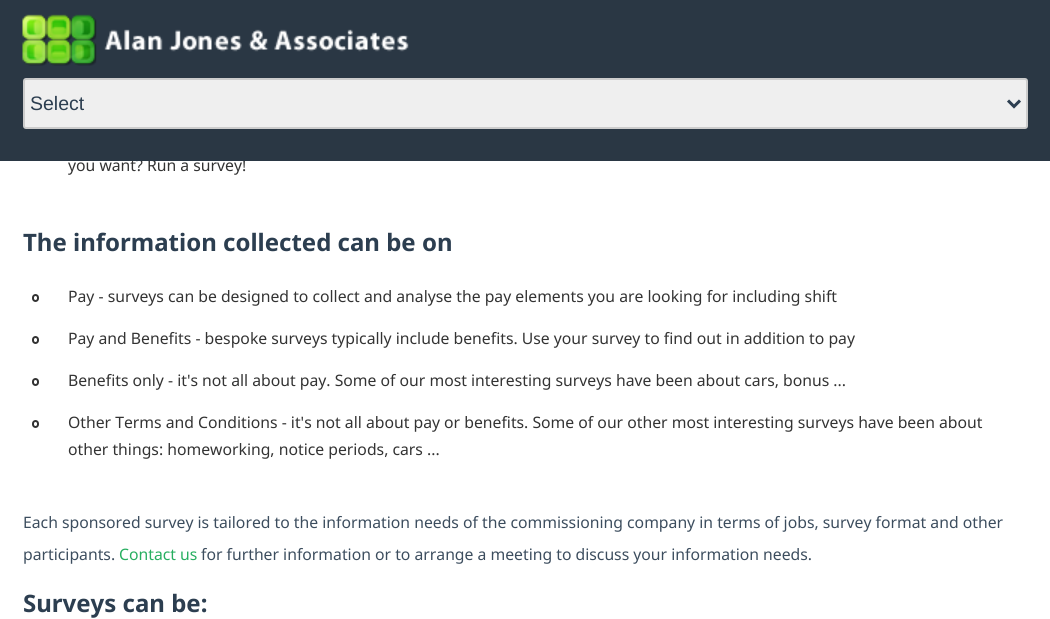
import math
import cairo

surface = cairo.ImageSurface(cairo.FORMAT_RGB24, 1050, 619)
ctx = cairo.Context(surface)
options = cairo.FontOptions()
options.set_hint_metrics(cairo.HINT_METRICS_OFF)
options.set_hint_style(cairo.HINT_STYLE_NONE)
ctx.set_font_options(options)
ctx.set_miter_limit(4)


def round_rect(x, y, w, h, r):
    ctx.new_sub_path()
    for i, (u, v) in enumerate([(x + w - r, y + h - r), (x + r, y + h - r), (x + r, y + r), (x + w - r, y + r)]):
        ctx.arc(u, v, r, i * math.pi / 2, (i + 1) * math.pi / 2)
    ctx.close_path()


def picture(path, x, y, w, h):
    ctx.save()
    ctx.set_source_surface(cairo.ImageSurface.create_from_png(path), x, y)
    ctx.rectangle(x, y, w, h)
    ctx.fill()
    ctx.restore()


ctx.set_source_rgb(1, 1, 1)
ctx.paint()
ctx.select_font_face("Noto Sans")
ctx.set_font_size(15.75)
ctx.set_source_rgb(0.2, 0.2, 0.2)
ctx.move_to(68, 171)
ctx.show_text("you want? Run a survey!")
ctx.set_source_rgb(0.165, 0.216, 0.267)
ctx.rectangle(0, 0, 1050, 161)
ctx.fill()
picture("img1.png", 22, 14, 387, 52)
ctx.set_source_rgb(0.937, 0.937, 0.937)
round_rect(24, 79, 1003, 49, 2)
ctx.fill_preserve()
ctx.set_source_rgb(0.8, 0.8, 0.8)
ctx.stroke()
ctx.new_path()
ctx.move_to(1008, 100.5)
ctx.line_to(1014, 106.5)
ctx.line_to(1020, 100.5)
ctx.set_source_rgb(0.173, 0.243, 0.314)
ctx.set_line_width(3)
ctx.stroke()
ctx.select_font_face("Liberation Sans")
ctx.set_font_size(19.5)
ctx.move_to(30, 110)
ctx.show_text("Select")
ctx.select_font_face("Noto Sans", cairo.FONT_SLANT_NORMAL, cairo.FONT_WEIGHT_BOLD)
ctx.set_font_size(24)
ctx.move_to(23, 251)
ctx.show_text("The information collected can be on")
round_rect(33, 295, 5, 6, 2.5)
ctx.set_source_rgb(0.2, 0.2, 0.2)
ctx.set_line_width(2)
ctx.stroke()
ctx.select_font_face("Noto Sans")
ctx.set_font_size(15.75)
ctx.move_to(68, 302)
ctx.show_text("Pay - surveys can be designed to collect and analyse the pay elements you are looking for including shift")
round_rect(33, 337, 5, 6, 2.5)
ctx.stroke()
ctx.move_to(68, 344)
ctx.show_text("Pay and Benefits - bespoke surveys typically include benefits. Use your survey to find out in addition to pay")
round_rect(33, 379, 5, 6, 2.5)
ctx.stroke()
ctx.move_to(68, 386)
ctx.show_text("Benefits only - it's not all about pay. Some of our most interesting surveys have been about cars, bonus ...")
round_rect(33, 421, 5, 6, 2.5)
ctx.stroke()
ctx.move_to(68, 428)
ctx.show_text("Other Terms and Conditions - it's not all about pay or benefits. Some of our other most interesting surveys have been about")
ctx.move_to(68, 455)
ctx.show_text("other things: homeworking, notice periods, cars ...")
ctx.set_source_rgb(0.235, 0.302, 0.369)
ctx.move_to(23, 528)
ctx.show_text("Each sponsored survey is tailored to the information needs of the commissioning company in terms of jobs, survey format and other")
ctx.move_to(23, 560)
ctx.show_text("participants.")
ctx.set_source_rgb(0.153, 0.682, 0.376)
ctx.move_to(119, 560)
ctx.show_text("Contact us")
ctx.set_source_rgb(0.235, 0.302, 0.369)
ctx.move_to(201, 560)
ctx.show_text("for further information or to arrange a meeting to discuss your information needs.")
ctx.select_font_face("Noto Sans", cairo.FONT_SLANT_NORMAL, cairo.FONT_WEIGHT_BOLD)
ctx.set_font_size(24)
ctx.set_source_rgb(0.173, 0.243, 0.314)
ctx.move_to(23, 612)
ctx.show_text("Surveys can be:")
surface.write_to_png("page.png")
